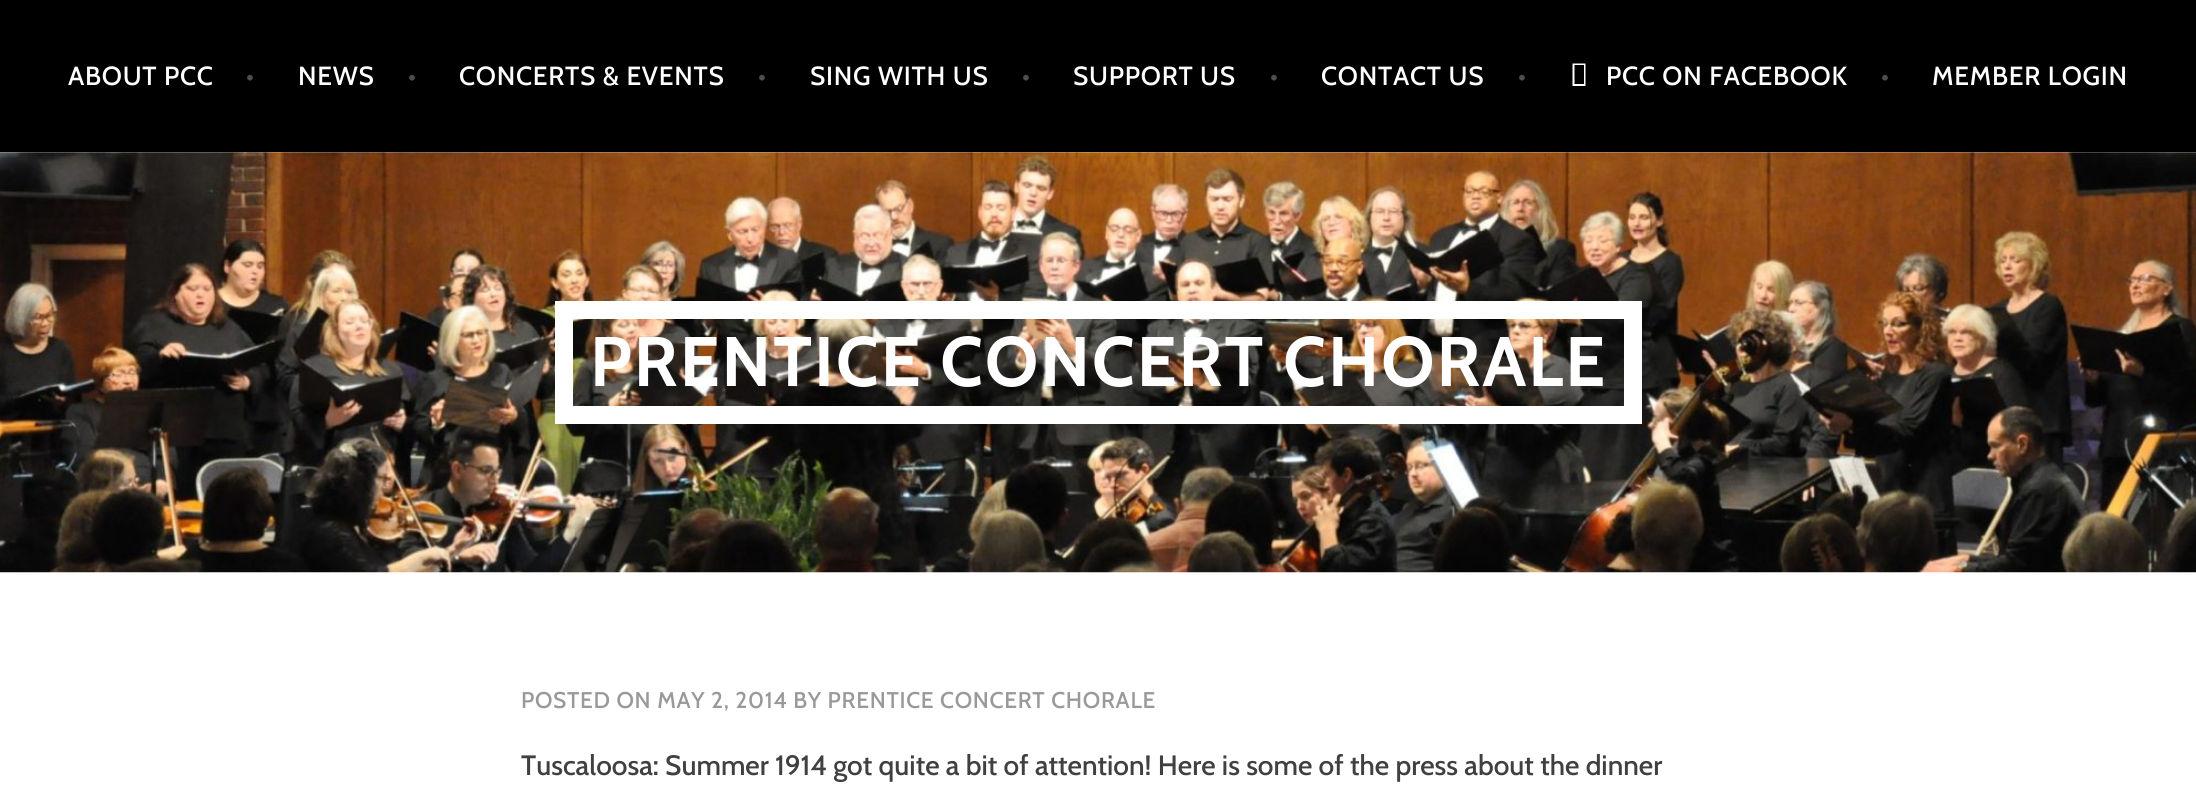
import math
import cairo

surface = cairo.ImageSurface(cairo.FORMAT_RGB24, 2196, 812)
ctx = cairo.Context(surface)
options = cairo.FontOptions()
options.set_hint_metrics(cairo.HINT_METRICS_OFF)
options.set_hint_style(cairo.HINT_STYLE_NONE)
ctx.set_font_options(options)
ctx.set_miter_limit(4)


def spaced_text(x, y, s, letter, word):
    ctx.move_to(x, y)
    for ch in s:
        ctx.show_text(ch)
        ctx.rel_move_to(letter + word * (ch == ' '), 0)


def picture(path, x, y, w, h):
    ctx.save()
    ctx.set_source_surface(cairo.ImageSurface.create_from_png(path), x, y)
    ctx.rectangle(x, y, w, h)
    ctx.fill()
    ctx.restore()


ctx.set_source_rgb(1, 1, 1)
ctx.paint()
ctx.set_source_rgb(0, 0, 0)
ctx.rectangle(0, 0, 2196, 152)
ctx.fill()
ctx.select_font_face("Cabin Medium")
ctx.set_font_size(26.25)
ctx.set_source_rgb(1, 1, 1)
spaced_text(68, 85, "ABOUT PCC", 0.75, 0)
ctx.set_source_rgb(0.302, 0.302, 0.302)
spaced_text(246, 85, "•", 0.75, 0)
ctx.set_source_rgb(1, 1, 1)
spaced_text(298, 85, "NEWS", 0.75, 0)
ctx.set_source_rgb(0.302, 0.302, 0.302)
spaced_text(408, 85, "•", 0.75, 0)
ctx.set_source_rgb(1, 1, 1)
spaced_text(459, 85, "CONCERTS & EVENTS", 0.75, 0)
ctx.set_source_rgb(0.302, 0.302, 0.302)
spaced_text(758, 85, "•", 0.75, 0)
ctx.set_source_rgb(1, 1, 1)
spaced_text(810, 85, "SING WITH US", 0.75, 0)
ctx.set_source_rgb(0.302, 0.302, 0.302)
spaced_text(1022, 85, "•", 0.75, 0)
ctx.set_source_rgb(1, 1, 1)
spaced_text(1073, 85, "SUPPORT US", 0.75, 0)
ctx.set_source_rgb(0.302, 0.302, 0.302)
spaced_text(1270, 85, "•", 0.75, 0)
ctx.set_source_rgb(1, 1, 1)
spaced_text(1321, 85, "CONTACT US", 0.75, 0)
ctx.set_source_rgb(0.302, 0.302, 0.302)
spaced_text(1518, 85, "•", 0.75, 0)
ctx.set_source_rgb(1, 1, 1)
ctx.new_path()
ctx.move_to(1572.5, 86)
ctx.line_to(1572.5, 63.5)
ctx.line_to(1585.5, 63.5)
ctx.line_to(1585.5, 86)
ctx.close_path()
ctx.move_to(1574.5, 84)
ctx.line_to(1584, 84)
ctx.line_to(1584, 65)
ctx.line_to(1574.5, 65)
ctx.close_path()
ctx.fill()
spaced_text(1606, 85, "PCC ON FACEBOOK", 0.75, 0)
ctx.set_source_rgb(0.302, 0.302, 0.302)
spaced_text(1881, 85, "•", 0.75, 0)
ctx.set_source_rgb(1, 1, 1)
spaced_text(1932, 85, "MEMBER LOGIN", 0.75, 0)
picture("img1.png", 0, 152, 2196, 421)
ctx.rectangle(564, 310, 1069, 105)
ctx.set_line_width(18)
ctx.stroke()
ctx.select_font_face("Cabin", cairo.FONT_SLANT_NORMAL, cairo.FONT_WEIGHT_BOLD)
ctx.set_font_size(70)
spaced_text(590, 386, "PRENTICE CONCERT CHORALE", 2.1, 0)
ctx.select_font_face("Cabin Medium")
ctx.set_font_size(22.75)
ctx.set_source_rgb(0.6, 0.6, 0.6)
spaced_text(521, 708, "POSTED ON MAY 2, 2014 BY PRENTICE CONCERT CHORALE", 0.7, 0)
ctx.set_font_size(28)
ctx.set_source_rgb(0.251, 0.251, 0.251)
ctx.move_to(521, 775)
ctx.show_text("Tuscaloosa: Summer 1914 got quite a bit of attention! Here is some of the press about the dinner")
surface.write_to_png("page.png")
